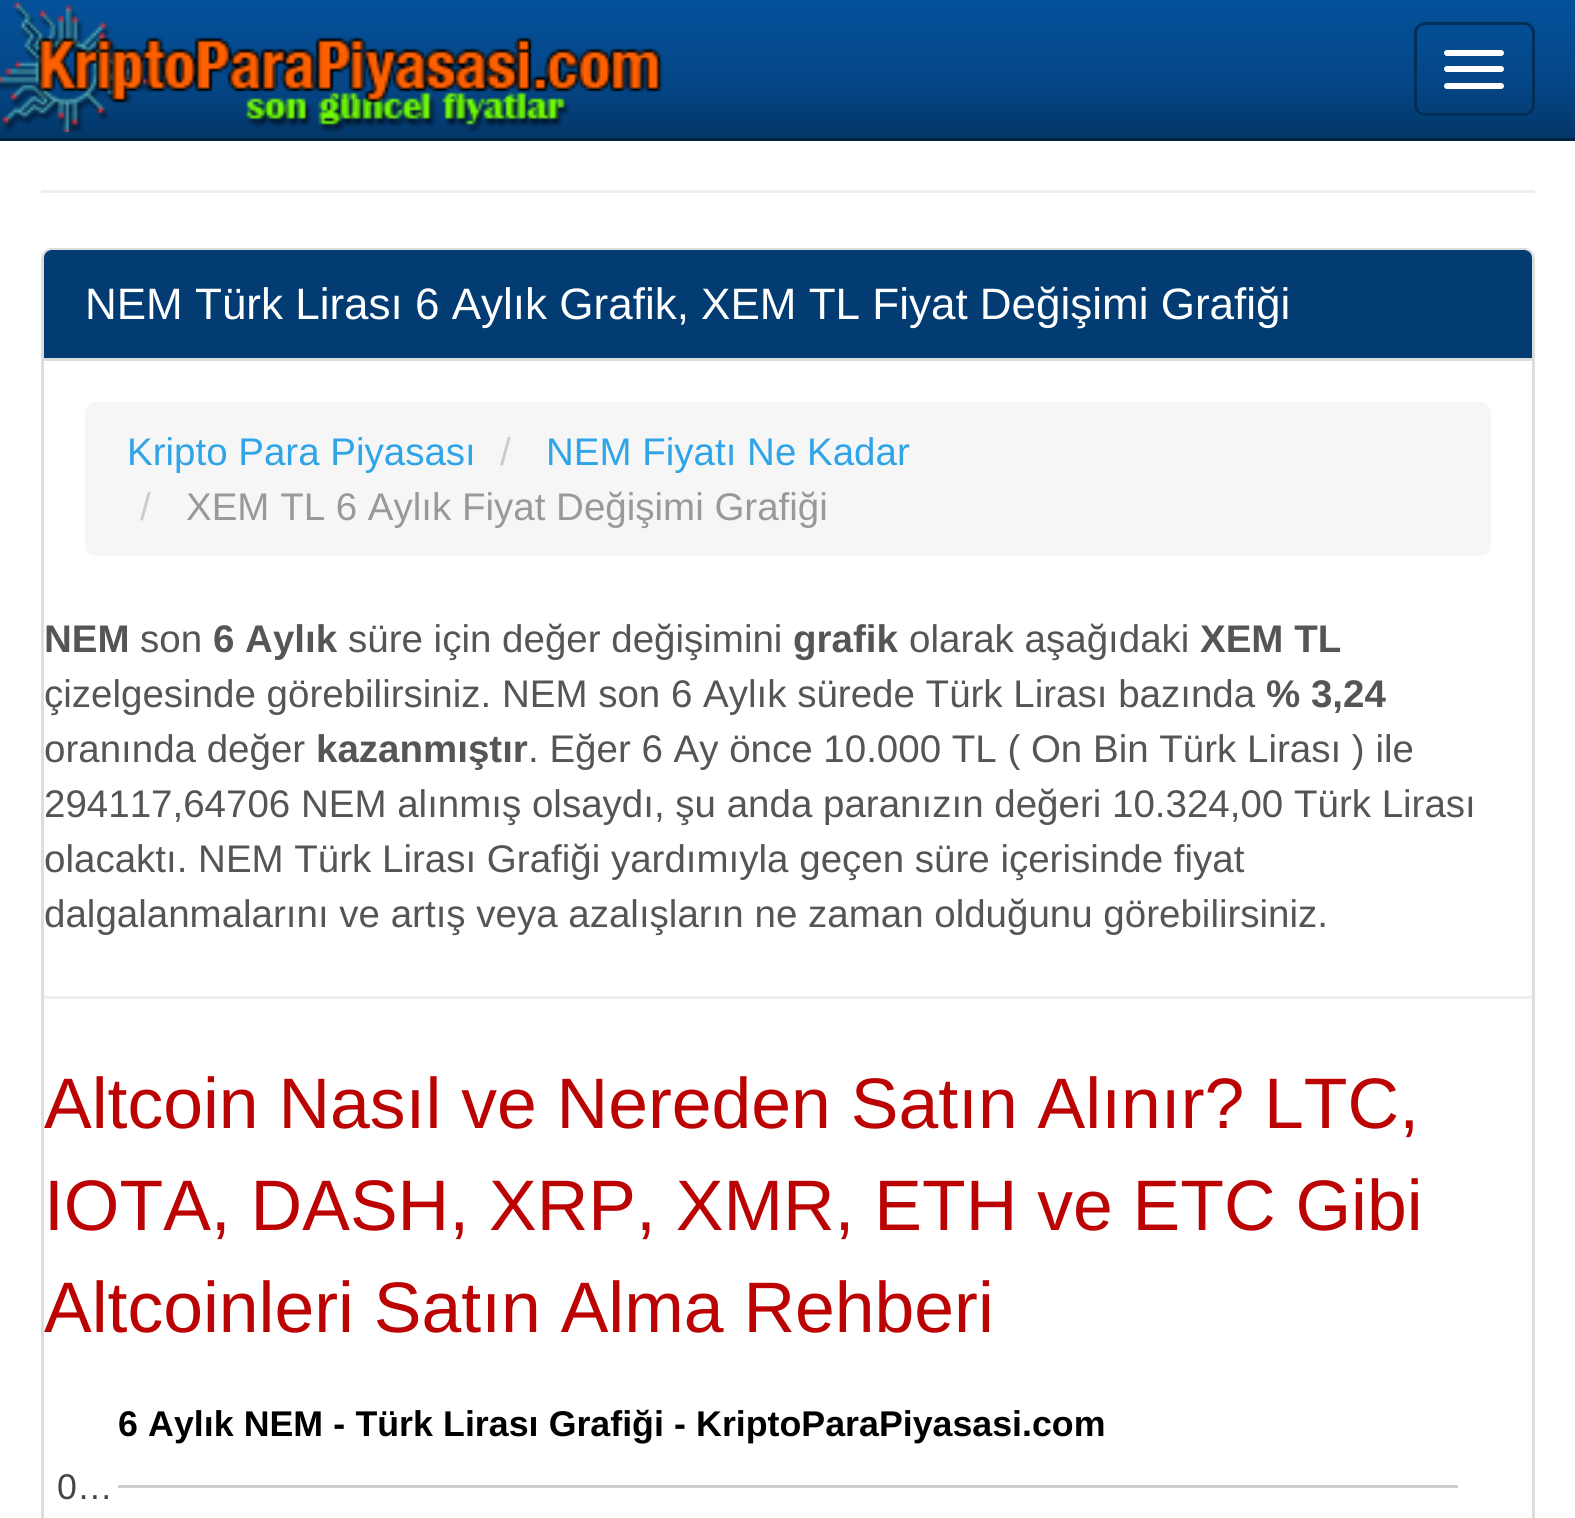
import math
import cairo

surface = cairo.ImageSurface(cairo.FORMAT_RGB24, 1575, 1518)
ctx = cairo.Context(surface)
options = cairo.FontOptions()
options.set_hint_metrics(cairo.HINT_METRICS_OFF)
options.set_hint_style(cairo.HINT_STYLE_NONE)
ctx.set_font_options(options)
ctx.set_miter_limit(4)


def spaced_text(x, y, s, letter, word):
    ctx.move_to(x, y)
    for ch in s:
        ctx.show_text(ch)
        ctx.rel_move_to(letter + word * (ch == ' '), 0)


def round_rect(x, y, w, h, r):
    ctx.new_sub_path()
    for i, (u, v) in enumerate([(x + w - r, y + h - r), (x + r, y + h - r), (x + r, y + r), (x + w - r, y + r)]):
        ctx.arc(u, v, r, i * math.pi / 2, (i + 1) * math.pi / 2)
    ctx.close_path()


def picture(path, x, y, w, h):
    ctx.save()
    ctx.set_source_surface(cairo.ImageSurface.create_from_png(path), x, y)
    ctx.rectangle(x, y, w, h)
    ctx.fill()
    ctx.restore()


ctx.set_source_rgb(1, 1, 1)
ctx.paint()
gradient = cairo.LinearGradient(788, 0, 788, 138)
gradient.add_color_stop_rgba(0, 0.016, 0.318, 0.608, 1)
gradient.add_color_stop_rgba(0.6, 0.016, 0.275, 0.529, 1)
gradient.add_color_stop_rgba(1, 0.012, 0.216, 0.412, 1)
ctx.set_source(gradient)
ctx.rectangle(0, 0, 1575, 138)
ctx.fill()
ctx.set_source_rgb(0.008, 0.133, 0.255)
ctx.rectangle(0, 138, 1575, 3)
ctx.fill()
picture("img1.png", 0, 2, 664, 130)
round_rect(1415.5, 23.5, 118, 91, 9.5)
ctx.set_source_rgb(0.008, 0.184, 0.353)
ctx.set_line_width(3)
ctx.stroke()
ctx.set_source_rgb(1, 1, 1)
round_rect(1444, 50, 60, 6, 3)
ctx.fill()
round_rect(1444, 66, 60, 6, 3)
ctx.fill()
round_rect(1444, 83, 60, 6, 3)
ctx.fill()
ctx.set_source_rgb(0.933, 0.933, 0.933)
ctx.rectangle(41, 190, 1494, 3)
ctx.fill()
round_rect(42.5, 249.5, 1491, 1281, 9.5)
ctx.set_source_rgb(0.867, 0.867, 0.867)
ctx.stroke()
ctx.set_source_rgb(0.012, 0.235, 0.451)
ctx.new_path()
ctx.move_to(52, 250)
ctx.line_to(1524, 250)
ctx.curve_to(1528.5, 250, 1532, 253.5, 1532, 258)
ctx.line_to(1532, 360)
ctx.line_to(44, 360)
ctx.line_to(44, 258)
ctx.curve_to(44, 253.5, 47.5, 250, 52, 250)
ctx.close_path()
ctx.fill()
ctx.set_source_rgb(0.867, 0.867, 0.867)
ctx.rectangle(44, 358, 1488, 3)
ctx.fill()
ctx.select_font_face("Liberation Sans")
ctx.set_font_size(44)
ctx.set_source_rgb(1, 1, 1)
ctx.move_to(85, 319)
ctx.show_text("NEM Türk Lirası 6 Aylık Grafik, XEM TL Fiyat Değişimi Grafiği")
ctx.set_source_rgb(0.961, 0.961, 0.961)
round_rect(85, 402, 1406, 154, 11)
ctx.fill()
ctx.set_font_size(38.5)
ctx.set_source_rgb(0.184, 0.643, 0.906)
ctx.move_to(127, 465)
ctx.show_text("Kripto Para Piyasası")
ctx.set_source_rgb(0.8, 0.8, 0.8)
ctx.move_to(500, 465)
ctx.show_text("/")
ctx.set_source_rgb(0.184, 0.643, 0.906)
ctx.move_to(546, 465)
ctx.show_text("NEM Fiyatı Ne Kadar")
ctx.set_source_rgb(0.8, 0.8, 0.8)
ctx.move_to(140, 520)
ctx.show_text("/")
ctx.set_source_rgb(0.6, 0.6, 0.6)
ctx.move_to(186, 520)
ctx.show_text("XEM TL 6 Aylık Fiyat Değişimi Grafiği")
ctx.select_font_face("Liberation Sans", cairo.FONT_SLANT_NORMAL, cairo.FONT_WEIGHT_BOLD)
ctx.set_source_rgb(0.333, 0.333, 0.333)
ctx.move_to(44, 652)
ctx.show_text("NEM")
ctx.select_font_face("Liberation Sans")
ctx.move_to(140, 652)
ctx.show_text("son")
ctx.select_font_face("Liberation Sans", cairo.FONT_SLANT_NORMAL, cairo.FONT_WEIGHT_BOLD)
ctx.move_to(213, 652)
ctx.show_text("6 Aylık")
ctx.select_font_face("Liberation Sans")
ctx.move_to(348, 652)
ctx.show_text("süre için değer değişimini")
ctx.select_font_face("Liberation Sans", cairo.FONT_SLANT_NORMAL, cairo.FONT_WEIGHT_BOLD)
ctx.move_to(793, 652)
ctx.show_text("grafik")
ctx.select_font_face("Liberation Sans")
ctx.move_to(909, 652)
ctx.show_text("olarak aşağıdaki")
ctx.select_font_face("Liberation Sans", cairo.FONT_SLANT_NORMAL, cairo.FONT_WEIGHT_BOLD)
ctx.move_to(1200, 652)
ctx.show_text("XEM TL")
ctx.select_font_face("Liberation Sans")
ctx.move_to(44, 707)
ctx.show_text("çizelgesinde görebilirsiniz. NEM son 6 Aylık sürede Türk Lirası bazında")
ctx.select_font_face("Liberation Sans", cairo.FONT_SLANT_NORMAL, cairo.FONT_WEIGHT_BOLD)
ctx.move_to(1266, 707)
ctx.show_text("% 3,24")
ctx.select_font_face("Liberation Sans")
ctx.move_to(44, 762)
ctx.show_text("oranında değer")
ctx.select_font_face("Liberation Sans", cairo.FONT_SLANT_NORMAL, cairo.FONT_WEIGHT_BOLD)
ctx.move_to(316, 762)
ctx.show_text("kazanmıştır")
ctx.select_font_face("Liberation Sans")
ctx.move_to(528, 762)
ctx.show_text(". Eğer 6 Ay önce 10.000 TL ( On Bin Türk Lirası ) ile")
ctx.move_to(44, 817)
ctx.show_text("294117,64706 NEM alınmış olsaydı, şu anda paranızın değeri 10.324,00 Türk Lirası")
ctx.move_to(44, 872)
ctx.show_text("olacaktı. NEM Türk Lirası Grafiği yardımıyla geçen süre içerisinde fiyat")
ctx.move_to(44, 927)
ctx.show_text("dalgalanmalarını ve artış veya azalışların ne zaman olduğunu görebilirsiniz.")
ctx.set_source_rgb(0.933, 0.933, 0.933)
ctx.rectangle(44, 996, 1488, 3)
ctx.fill()
ctx.set_font_size(71.5)
ctx.set_source_rgb(0.733, 0.012, 0.012)
ctx.move_to(44, 1128)
ctx.show_text("Altcoin Nasıl ve Nereden Satın Alınır? LTC,")
ctx.move_to(44, 1230)
ctx.show_text("IOTA, DASH, XRP, XMR, ETH ve ETC Gibi")
ctx.move_to(44, 1332)
ctx.show_text("Altcoinleri Satın Alma Rehberi")
ctx.select_font_face("Liberation Sans", cairo.FONT_SLANT_NORMAL, cairo.FONT_WEIGHT_BOLD)
ctx.set_font_size(35.75)
ctx.set_source_rgb(0, 0, 0)
spaced_text(118, 1436, "6 Aylık NEM - Türk Lirası Grafiği - KriptoParaPiyasasi.com", 0, 0.25)
ctx.select_font_face("Liberation Sans")
ctx.set_source_rgb(0.267, 0.267, 0.267)
ctx.move_to(57, 1499)
ctx.show_text("0…")
ctx.set_source_rgb(0.8, 0.8, 0.8)
ctx.rectangle(118, 1485, 1340, 3)
ctx.fill()
surface.write_to_png("page.png")
